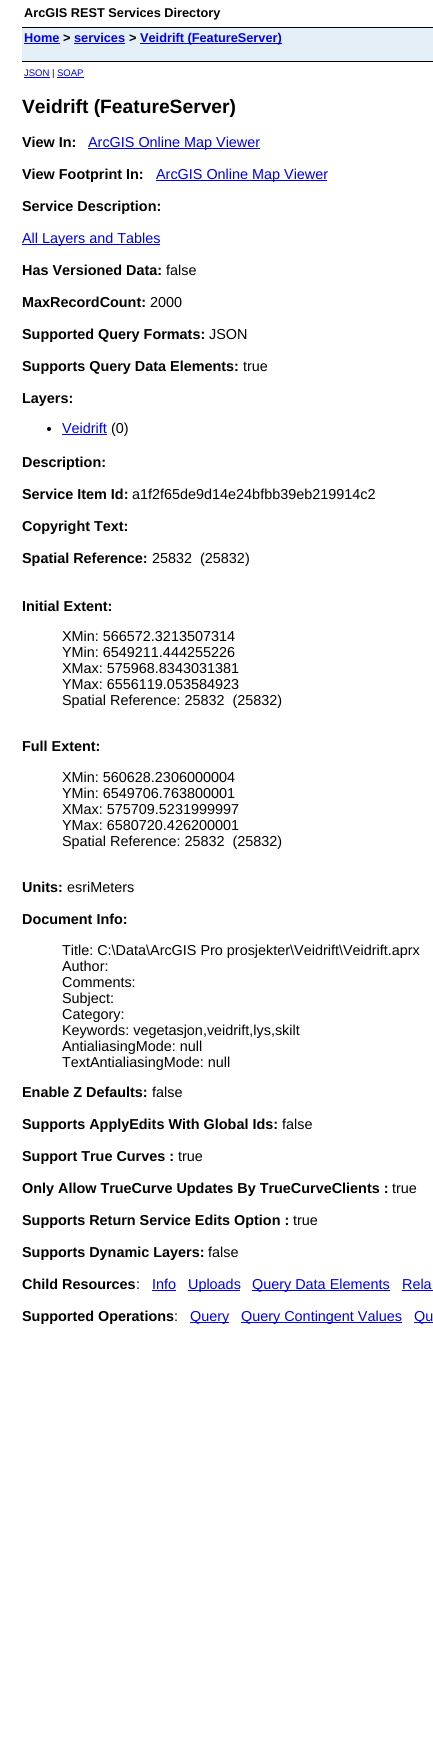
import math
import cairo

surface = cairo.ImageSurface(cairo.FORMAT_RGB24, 433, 1754)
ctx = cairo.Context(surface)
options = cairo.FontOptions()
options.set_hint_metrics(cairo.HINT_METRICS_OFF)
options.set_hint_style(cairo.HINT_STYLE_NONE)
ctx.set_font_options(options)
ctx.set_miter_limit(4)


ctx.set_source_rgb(1, 1, 1)
ctx.paint()
ctx.select_font_face("Liberation Sans", cairo.FONT_SLANT_NORMAL, cairo.FONT_WEIGHT_BOLD)
ctx.set_font_size(12.75)
ctx.set_source_rgb(0, 0, 0)
ctx.move_to(24, 17)
ctx.show_text("ArcGIS REST Services Directory")
ctx.set_source_rgb(0.898, 0.937, 0.969)
ctx.rectangle(22, 28, 411, 33)
ctx.fill()
ctx.set_source_rgb(0, 0, 0)
ctx.rectangle(22, 27, 411, 1)
ctx.fill()
ctx.rectangle(22, 61, 411, 1)
ctx.fill()
ctx.set_source_rgb(0, 0, 0.933)
ctx.move_to(24, 42)
ctx.show_text("Home")
ctx.rectangle(24, 43, 36, 1)
ctx.fill()
ctx.set_source_rgb(0, 0, 0)
ctx.move_to(63, 42)
ctx.show_text(">")
ctx.set_source_rgb(0, 0, 0.933)
ctx.move_to(74, 42)
ctx.show_text("services")
ctx.rectangle(74, 43, 51, 1)
ctx.fill()
ctx.set_source_rgb(0, 0, 0)
ctx.move_to(129, 42)
ctx.show_text(">")
ctx.set_source_rgb(0, 0, 0.933)
ctx.rectangle(140, 43, 142, 1)
ctx.fill()
ctx.move_to(140, 42)
ctx.show_text("Veidrift (FeatureServer)")
ctx.select_font_face("Liberation Sans")
ctx.set_font_size(9.5)
ctx.move_to(24, 76)
ctx.show_text("JSON")
ctx.rectangle(24, 77, 26, 1)
ctx.fill()
ctx.set_source_rgb(0, 0, 0)
ctx.move_to(52, 76)
ctx.show_text("|")
ctx.set_source_rgb(0, 0, 0.933)
ctx.move_to(57, 76)
ctx.show_text("SOAP")
ctx.rectangle(57, 77, 27, 1)
ctx.fill()
ctx.select_font_face("Liberation Sans", cairo.FONT_SLANT_NORMAL, cairo.FONT_WEIGHT_BOLD)
ctx.set_font_size(19.25)
ctx.set_source_rgb(0, 0, 0)
ctx.move_to(22, 113)
ctx.show_text("Veidrift (FeatureServer)")
ctx.set_font_size(14.4)
ctx.move_to(22, 147)
ctx.show_text("View In:")
ctx.set_source_rgb(0, 0, 0.933)
ctx.rectangle(88, 148, 172, 1)
ctx.fill()
ctx.select_font_face("Liberation Sans")
ctx.move_to(88, 147)
ctx.show_text("ArcGIS Online Map Viewer")
ctx.select_font_face("Liberation Sans", cairo.FONT_SLANT_NORMAL, cairo.FONT_WEIGHT_BOLD)
ctx.set_source_rgb(0, 0, 0)
ctx.move_to(22, 179)
ctx.show_text("View Footprint In:")
ctx.set_source_rgb(0, 0, 0.933)
ctx.rectangle(156, 180, 171, 1)
ctx.fill()
ctx.select_font_face("Liberation Sans")
ctx.move_to(156, 179)
ctx.show_text("ArcGIS Online Map Viewer")
ctx.select_font_face("Liberation Sans", cairo.FONT_SLANT_NORMAL, cairo.FONT_WEIGHT_BOLD)
ctx.set_source_rgb(0, 0, 0)
ctx.move_to(22, 211)
ctx.show_text("Service Description:")
ctx.set_source_rgb(0, 0, 0.933)
ctx.rectangle(22, 244, 138, 1)
ctx.fill()
ctx.select_font_face("Liberation Sans")
ctx.move_to(22, 243)
ctx.show_text("All Layers and Tables")
ctx.select_font_face("Liberation Sans", cairo.FONT_SLANT_NORMAL, cairo.FONT_WEIGHT_BOLD)
ctx.set_source_rgb(0, 0, 0)
ctx.move_to(22, 275)
ctx.show_text("Has Versioned Data:")
ctx.select_font_face("Liberation Sans")
ctx.move_to(166, 275)
ctx.show_text("false")
ctx.select_font_face("Liberation Sans", cairo.FONT_SLANT_NORMAL, cairo.FONT_WEIGHT_BOLD)
ctx.move_to(22, 307)
ctx.show_text("MaxRecordCount:")
ctx.select_font_face("Liberation Sans")
ctx.move_to(150, 307)
ctx.show_text("2000")
ctx.select_font_face("Liberation Sans", cairo.FONT_SLANT_NORMAL, cairo.FONT_WEIGHT_BOLD)
ctx.move_to(22, 339)
ctx.show_text("Supported Query Formats:")
ctx.select_font_face("Liberation Sans")
ctx.move_to(209, 339)
ctx.show_text("JSON")
ctx.select_font_face("Liberation Sans", cairo.FONT_SLANT_NORMAL, cairo.FONT_WEIGHT_BOLD)
ctx.move_to(22, 371)
ctx.show_text("Supports Query Data Elements:")
ctx.select_font_face("Liberation Sans")
ctx.move_to(243, 371)
ctx.show_text("true")
ctx.select_font_face("Liberation Sans", cairo.FONT_SLANT_NORMAL, cairo.FONT_WEIGHT_BOLD)
ctx.move_to(22, 403)
ctx.show_text("Layers:")
ctx.new_path()
ctx.arc(49, 429, 2, 0, 2 * math.pi)
ctx.fill()
ctx.select_font_face("Liberation Sans")
ctx.set_source_rgb(0, 0, 0.933)
ctx.move_to(62, 433)
ctx.show_text("Veidrift")
ctx.rectangle(62, 434, 45, 1)
ctx.fill()
ctx.set_source_rgb(0, 0, 0)
ctx.move_to(111, 433)
ctx.show_text("(0)")
ctx.select_font_face("Liberation Sans", cairo.FONT_SLANT_NORMAL, cairo.FONT_WEIGHT_BOLD)
ctx.move_to(22, 467)
ctx.show_text("Description:")
ctx.move_to(22, 499)
ctx.show_text("Service Item Id:")
ctx.select_font_face("Liberation Sans")
ctx.move_to(132, 499)
ctx.show_text("a1f2f65de9d14e24bfbb39eb219914c2")
ctx.select_font_face("Liberation Sans", cairo.FONT_SLANT_NORMAL, cairo.FONT_WEIGHT_BOLD)
ctx.move_to(22, 531)
ctx.show_text("Copyright Text:")
ctx.move_to(22, 563)
ctx.show_text("Spatial Reference:")
ctx.select_font_face("Liberation Sans")
ctx.move_to(152, 563)
ctx.show_text("25832  (25832)")
ctx.select_font_face("Liberation Sans", cairo.FONT_SLANT_NORMAL, cairo.FONT_WEIGHT_BOLD)
ctx.move_to(22, 611)
ctx.show_text("Initial Extent:")
ctx.select_font_face("Liberation Sans")
ctx.move_to(62, 641)
ctx.show_text("XMin: 566572.3213507314")
ctx.move_to(62, 657)
ctx.show_text("YMin: 6549211.444255226")
ctx.move_to(62, 673)
ctx.show_text("XMax: 575968.8343031381")
ctx.move_to(62, 689)
ctx.show_text("YMax: 6556119.053584923")
ctx.move_to(62, 705)
ctx.show_text("Spatial Reference: 25832  (25832)")
ctx.select_font_face("Liberation Sans", cairo.FONT_SLANT_NORMAL, cairo.FONT_WEIGHT_BOLD)
ctx.move_to(22, 751)
ctx.show_text("Full Extent:")
ctx.select_font_face("Liberation Sans")
ctx.move_to(62, 782)
ctx.show_text("XMin: 560628.2306000004")
ctx.move_to(62, 798)
ctx.show_text("YMin: 6549706.763800001")
ctx.move_to(62, 814)
ctx.show_text("XMax: 575709.5231999997")
ctx.move_to(62, 830)
ctx.show_text("YMax: 6580720.426200001")
ctx.move_to(62, 846)
ctx.show_text("Spatial Reference: 25832  (25832)")
ctx.select_font_face("Liberation Sans", cairo.FONT_SLANT_NORMAL, cairo.FONT_WEIGHT_BOLD)
ctx.move_to(22, 892)
ctx.show_text("Units:")
ctx.select_font_face("Liberation Sans")
ctx.move_to(67, 892)
ctx.show_text("esriMeters")
ctx.select_font_face("Liberation Sans", cairo.FONT_SLANT_NORMAL, cairo.FONT_WEIGHT_BOLD)
ctx.move_to(22, 924)
ctx.show_text("Document Info:")
ctx.select_font_face("Liberation Sans")
ctx.move_to(62, 955)
ctx.show_text("Title: C:\\Data\\ArcGIS Pro prosjekter\\Veidrift\\Veidrift.aprx")
ctx.move_to(62, 971)
ctx.show_text("Author:")
ctx.move_to(62, 987)
ctx.show_text("Comments:")
ctx.move_to(62, 1003)
ctx.show_text("Subject:")
ctx.move_to(62, 1019)
ctx.show_text("Category:")
ctx.move_to(62, 1035)
ctx.show_text("Keywords: vegetasjon,veidrift,lys,skilt")
ctx.move_to(62, 1051)
ctx.show_text("AntialiasingMode: null")
ctx.move_to(62, 1067)
ctx.show_text("TextAntialiasingMode: null")
ctx.select_font_face("Liberation Sans", cairo.FONT_SLANT_NORMAL, cairo.FONT_WEIGHT_BOLD)
ctx.move_to(22, 1097)
ctx.show_text("Enable Z Defaults:")
ctx.select_font_face("Liberation Sans")
ctx.move_to(152, 1097)
ctx.show_text("false")
ctx.select_font_face("Liberation Sans", cairo.FONT_SLANT_NORMAL, cairo.FONT_WEIGHT_BOLD)
ctx.move_to(22, 1129)
ctx.show_text("Supports ApplyEdits With Global Ids:")
ctx.select_font_face("Liberation Sans")
ctx.move_to(282, 1129)
ctx.show_text("false")
ctx.select_font_face("Liberation Sans", cairo.FONT_SLANT_NORMAL, cairo.FONT_WEIGHT_BOLD)
ctx.move_to(22, 1161)
ctx.show_text("Support True Curves :")
ctx.select_font_face("Liberation Sans")
ctx.move_to(178, 1161)
ctx.show_text("true")
ctx.select_font_face("Liberation Sans", cairo.FONT_SLANT_NORMAL, cairo.FONT_WEIGHT_BOLD)
ctx.move_to(22, 1193)
ctx.show_text("Only Allow TrueCurve Updates By TrueCurveClients :")
ctx.select_font_face("Liberation Sans")
ctx.move_to(392, 1193)
ctx.show_text("true")
ctx.select_font_face("Liberation Sans", cairo.FONT_SLANT_NORMAL, cairo.FONT_WEIGHT_BOLD)
ctx.move_to(22, 1225)
ctx.show_text("Supports Return Service Edits Option :")
ctx.select_font_face("Liberation Sans")
ctx.move_to(293, 1225)
ctx.show_text("true")
ctx.select_font_face("Liberation Sans", cairo.FONT_SLANT_NORMAL, cairo.FONT_WEIGHT_BOLD)
ctx.move_to(22, 1257)
ctx.show_text("Supports Dynamic Layers:")
ctx.select_font_face("Liberation Sans")
ctx.move_to(208, 1257)
ctx.show_text("false")
ctx.select_font_face("Liberation Sans", cairo.FONT_SLANT_NORMAL, cairo.FONT_WEIGHT_BOLD)
ctx.move_to(22, 1289)
ctx.show_text("Child Resources")
ctx.select_font_face("Liberation Sans")
ctx.move_to(136, 1289)
ctx.show_text(":")
ctx.set_source_rgb(0, 0, 0.933)
ctx.move_to(152, 1289)
ctx.show_text("Info")
ctx.rectangle(152, 1290, 24, 1)
ctx.fill()
ctx.rectangle(188, 1290, 52, 1)
ctx.fill()
ctx.move_to(188, 1289)
ctx.show_text("Uploads")
ctx.rectangle(252, 1290, 138, 1)
ctx.fill()
ctx.move_to(252, 1289)
ctx.show_text("Query Data Elements")
ctx.move_to(402, 1289)
ctx.show_text("Rela")
ctx.rectangle(402, 1290, 31, 1)
ctx.fill()
ctx.select_font_face("Liberation Sans", cairo.FONT_SLANT_NORMAL, cairo.FONT_WEIGHT_BOLD)
ctx.set_source_rgb(0, 0, 0)
ctx.move_to(22, 1321)
ctx.show_text("Supported Operations")
ctx.select_font_face("Liberation Sans")
ctx.move_to(174, 1321)
ctx.show_text(":")
ctx.set_source_rgb(0, 0, 0.933)
ctx.rectangle(190, 1322, 39, 1)
ctx.fill()
ctx.move_to(190, 1321)
ctx.show_text("Query")
ctx.rectangle(241, 1322, 161, 1)
ctx.fill()
ctx.move_to(241, 1321)
ctx.show_text("Query Contingent Values")
ctx.rectangle(414, 1322, 19, 1)
ctx.fill()
ctx.move_to(414, 1321)
ctx.show_text("Qu")
surface.write_to_png("page.png")
